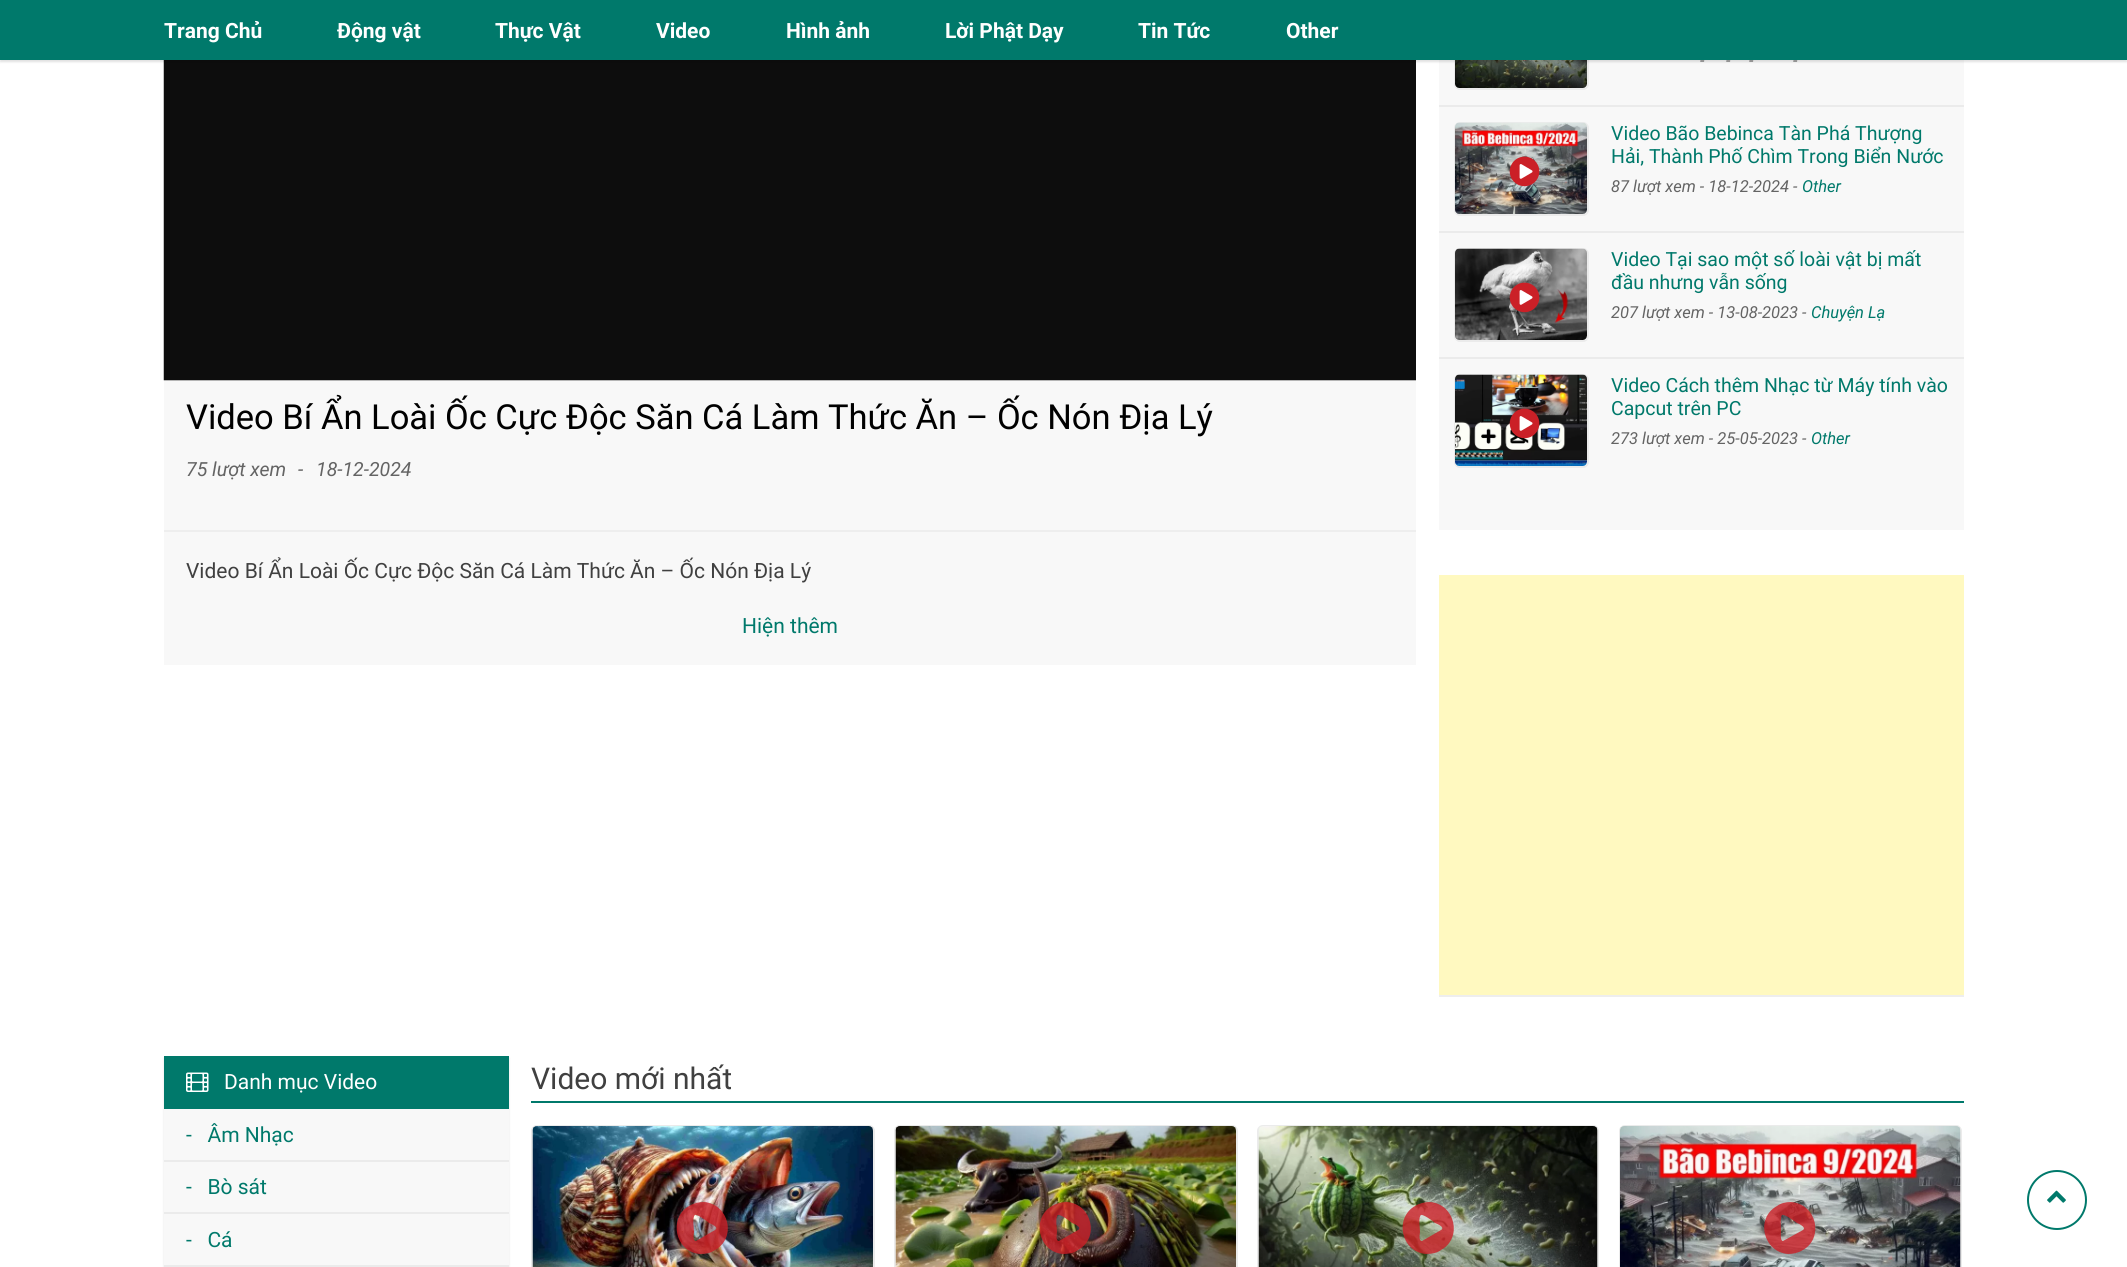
import math
import cairo

surface = cairo.ImageSurface(cairo.FORMAT_RGB24, 2127, 1267)
ctx = cairo.Context(surface)
options = cairo.FontOptions()
options.set_hint_metrics(cairo.HINT_METRICS_OFF)
options.set_hint_style(cairo.HINT_STYLE_NONE)
ctx.set_font_options(options)
ctx.set_miter_limit(4)


def round_rect(x, y, w, h, r):
    ctx.new_sub_path()
    for i, (u, v) in enumerate([(x + w - r, y + h - r), (x + r, y + h - r), (x + r, y + r), (x + w - r, y + r)]):
        ctx.arc(u, v, r, i * math.pi / 2, (i + 1) * math.pi / 2)
    ctx.close_path()


def shadow(x, y, w, h, r, blur, alpha):
    ctx.push_group_with_content(cairo.CONTENT_ALPHA)
    ctx.set_operator(cairo.OPERATOR_SOURCE)
    for i in range(15, -16, -2):
        e = blur * i / 6
        if min(w, h) + 2 * e > 0:
            ctx.set_source_rgba(0, 0, 0, alpha * math.erfc((i - 1) / 8.5) / 2)
            round_rect(x - e, y - e, w + 2 * e, h + 2 * e, max(0, min(r + e + blur * .6, min(w, h) / 2 + e)))
            ctx.fill()
    ctx.mask(ctx.pop_group())


def picture(path, x, y, w, h):
    ctx.save()
    ctx.set_source_surface(cairo.ImageSurface.create_from_png(path), x, y)
    ctx.rectangle(x, y, w, h)
    ctx.fill()
    ctx.restore()


ctx.set_source_rgb(1, 1, 1)
ctx.paint()
ctx.set_source_rgb(0.969, 0.969, 0.969)
ctx.rectangle(1439, 60, 525, 470)
ctx.fill()
ctx.set_source_rgb(1, 1, 1)
round_rect(1455, -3, 133, 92, 5)
ctx.fill_preserve()
ctx.set_source_rgb(0.918, 0.918, 0.918)
ctx.stroke()
picture("img1.png", 1455, 60, 132, 28)
picture("img2.png", 1522, 60, 5, 1)
ctx.set_source_rgb(0.933, 0.933, 0.933)
ctx.rectangle(164, 380, 1252, 1)
ctx.fill()
picture("img9.png", 163, 60, 1253, 321)
ctx.set_source_rgb(0, 0, 0)
shadow(0, 2, 2127, 60, 0, 1, 0.12)
ctx.set_source_rgb(0, 0.475, 0.42)
ctx.rectangle(0, 0, 2127, 60)
ctx.fill()
ctx.select_font_face("Roboto", cairo.FONT_SLANT_NORMAL, cairo.FONT_WEIGHT_BOLD)
ctx.set_font_size(21)
ctx.set_source_rgb(1, 1, 1)
ctx.move_to(164, 38)
ctx.show_text("Trang Chủ")
ctx.move_to(337, 38)
ctx.show_text("Động vật")
ctx.move_to(495, 38)
ctx.show_text("Thực Vật")
ctx.move_to(656, 38)
ctx.show_text("Video")
ctx.move_to(786, 38)
ctx.show_text("Hình ảnh")
ctx.move_to(945, 38)
ctx.show_text("Lời Phật Dạy")
ctx.move_to(1138, 38)
ctx.show_text("Tin Tức")
ctx.move_to(1286, 38)
ctx.show_text("Other")
ctx.set_source_rgb(0.933, 0.933, 0.933)
ctx.rectangle(1439, 995, 525, 2)
ctx.fill()
ctx.set_source_rgb(0.918, 0.918, 0.918)
ctx.rectangle(1439, 105, 525, 2)
ctx.fill()
ctx.select_font_face("Roboto", cairo.FONT_SLANT_ITALIC)
ctx.set_font_size(16.5)
ctx.set_source_rgb(0.392, 0.392, 0.392)
ctx.move_to(1700, 66)
ctx.show_text("-")
ctx.move_to(1726, 66)
ctx.show_text("-")
ctx.move_to(1749, 66)
ctx.show_text("-")
ctx.move_to(1793, 66)
ctx.show_text("-")
ctx.set_source_rgb(0.918, 0.918, 0.918)
ctx.rectangle(1439, 231, 525, 2)
ctx.fill()
ctx.set_source_rgb(1, 1, 1)
round_rect(1455, 123, 133, 92, 5)
ctx.fill_preserve()
ctx.set_source_rgb(0.918, 0.918, 0.918)
ctx.stroke()
picture("img3.png", 1455, 122, 132, 92)
ctx.set_source_rgb(1, 1, 1)
round_rect(1511, 159, 22, 23, 11)
ctx.fill()
picture("img4.png", 1509, 156, 31, 31)
ctx.select_font_face("Roboto")
ctx.set_font_size(19.5)
ctx.set_source_rgb(0, 0.475, 0.42)
ctx.move_to(1611, 140)
ctx.show_text("Video Bão Bebinca Tàn Phá Thượng")
ctx.move_to(1611, 163)
ctx.show_text("Hải, Thành Phố Chìm Trong Biển Nước")
ctx.select_font_face("Roboto", cairo.FONT_SLANT_ITALIC)
ctx.set_font_size(16.5)
ctx.set_source_rgb(0.392, 0.392, 0.392)
ctx.move_to(1611, 192)
ctx.show_text("87 lượt xem - 18-12-2024 -")
ctx.set_source_rgb(0, 0.475, 0.42)
ctx.move_to(1802, 192)
ctx.show_text("Other")
ctx.set_source_rgb(0.918, 0.918, 0.918)
ctx.rectangle(1439, 357, 525, 2)
ctx.fill()
ctx.set_source_rgb(1, 1, 1)
round_rect(1455, 249, 133, 92, 5)
ctx.fill_preserve()
ctx.set_source_rgb(0.918, 0.918, 0.918)
ctx.stroke()
picture("img5.png", 1455, 248, 132, 92)
ctx.set_source_rgb(1, 1, 1)
round_rect(1511, 285, 22, 23, 11)
ctx.fill()
picture("img6.png", 1509, 282, 31, 31)
ctx.select_font_face("Roboto")
ctx.set_font_size(19.5)
ctx.set_source_rgb(0, 0.475, 0.42)
ctx.move_to(1611, 266)
ctx.show_text("Video Tại sao một số loài vật bị mất")
ctx.move_to(1611, 289)
ctx.show_text("đầu nhưng vẫn sống")
ctx.select_font_face("Roboto", cairo.FONT_SLANT_ITALIC)
ctx.set_font_size(16.5)
ctx.set_source_rgb(0.392, 0.392, 0.392)
ctx.move_to(1611, 318)
ctx.show_text("207 lượt xem - 13-08-2023 -")
ctx.set_source_rgb(0, 0.475, 0.42)
ctx.move_to(1811, 318)
ctx.show_text("Chuyện Lạ")
ctx.set_source_rgb(1, 1, 1)
round_rect(1455, 375, 133, 92, 5)
ctx.fill_preserve()
ctx.set_source_rgb(0.918, 0.918, 0.918)
ctx.stroke()
picture("img7.png", 1455, 374, 132, 92)
ctx.set_source_rgb(1, 1, 1)
round_rect(1511, 411, 22, 23, 11)
ctx.fill()
picture("img8.png", 1509, 408, 31, 31)
ctx.select_font_face("Roboto")
ctx.set_font_size(19.5)
ctx.set_source_rgb(0, 0.475, 0.42)
ctx.move_to(1611, 392)
ctx.show_text("Video Cách thêm Nhạc từ Máy tính vào")
ctx.move_to(1611, 415)
ctx.show_text("Capcut trên PC")
ctx.select_font_face("Roboto", cairo.FONT_SLANT_ITALIC)
ctx.set_font_size(16.5)
ctx.set_source_rgb(0.392, 0.392, 0.392)
ctx.move_to(1611, 444)
ctx.show_text("273 lượt xem - 25-05-2023 -")
ctx.set_source_rgb(0, 0.475, 0.42)
ctx.move_to(1811, 444)
ctx.show_text("Other")
ctx.set_source_rgb(1, 0.976, 0.753)
ctx.rectangle(1439, 575, 525, 420)
ctx.fill()
ctx.set_source_rgb(0.969, 0.969, 0.969)
ctx.rectangle(164, 381, 1252, 284)
ctx.fill()
ctx.select_font_face("Roboto")
ctx.set_font_size(34.5)
ctx.set_source_rgb(0, 0, 0)
ctx.move_to(186, 429)
ctx.show_text("Video Bí Ẩn Loài Ốc Cực Độc Săn Cá Làm Thức Ăn – Ốc Nón Địa Lý")
ctx.select_font_face("Roboto", cairo.FONT_SLANT_ITALIC)
ctx.set_font_size(19.5)
ctx.set_source_rgb(0.392, 0.392, 0.392)
ctx.move_to(186, 476)
ctx.show_text("75 lượt xem")
ctx.move_to(298, 476)
ctx.show_text("-")
ctx.move_to(316, 476)
ctx.show_text("18-12-2024")
ctx.set_source_rgb(0.933, 0.933, 0.933)
ctx.rectangle(164, 530, 1252, 2)
ctx.fill()
ctx.select_font_face("Roboto")
ctx.set_font_size(21)
ctx.set_source_rgb(0.251, 0.251, 0.251)
ctx.move_to(186, 578)
ctx.show_text("Video Bí Ẩn Loài Ốc Cực Độc Săn Cá Làm Thức Ăn – Ốc Nón Địa Lý")
ctx.set_source_rgb(0, 0.475, 0.42)
ctx.move_to(742, 633)
ctx.show_text("Hiện thêm")
ctx.set_source_rgb(0, 0, 0)
shadow(164, 1058, 345, 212, 0, 1, 0.1)
ctx.set_source_rgb(0.969, 0.969, 0.969)
ctx.rectangle(164, 1109, 345, 156)
ctx.fill()
ctx.set_source_rgb(0, 0.475, 0.42)
ctx.rectangle(164, 1056, 345, 53)
ctx.fill()
picture("img10.png", 186, 1072, 23, 20)
ctx.set_source_rgb(1, 1, 1)
ctx.move_to(224, 1089)
ctx.show_text("Danh mục Video")
ctx.set_source_rgb(0.918, 0.918, 0.918)
ctx.rectangle(164, 1160, 345, 2)
ctx.fill()
ctx.set_source_rgb(0, 0.475, 0.42)
ctx.move_to(186, 1142)
ctx.show_text("-   Âm Nhạc")
ctx.set_source_rgb(0.918, 0.918, 0.918)
ctx.rectangle(164, 1212, 345, 2)
ctx.fill()
ctx.set_source_rgb(0, 0.475, 0.42)
ctx.move_to(186, 1194)
ctx.show_text("-   Bò sát")
ctx.set_source_rgb(0.918, 0.918, 0.918)
ctx.rectangle(164, 1265, 345, 2)
ctx.fill()
ctx.set_source_rgb(0, 0.475, 0.42)
ctx.move_to(186, 1247)
ctx.show_text("-   Cá")
ctx.rectangle(531, 1101, 1433, 2)
ctx.fill()
ctx.set_font_size(30)
ctx.set_source_rgb(0.251, 0.251, 0.251)
ctx.move_to(531, 1089)
ctx.show_text("Video mới nhất")
round_rect(532, 1126, 342, 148, 5)
ctx.set_source_rgb(0.918, 0.918, 0.918)
ctx.stroke()
picture("img11.png", 532, 1126, 341, 141)
ctx.set_source_rgba(0.796, 0.125, 0.153, 0.8)
ctx.new_path()
ctx.move_to(689, 1206)
ctx.curve_to(694, 1203, 699, 1202, 704, 1202)
ctx.curve_to(729, 1204, 737, 1238, 715, 1250)
ctx.curve_to(711, 1253, 706, 1254, 700, 1254)
ctx.curve_to(675, 1252, 668, 1218, 689, 1206)
ctx.close_path()
ctx.move_to(715, 1230)
ctx.curve_to(720, 1227, 709, 1223, 709, 1223)
ctx.curve_to(707, 1221, 697, 1214, 695, 1215)
ctx.curve_to(692, 1217, 694, 1229, 694, 1232)
ctx.curve_to(694, 1233, 692, 1241, 696, 1241)
ctx.close_path()
ctx.fill()
round_rect(895, 1126, 342, 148, 5)
ctx.set_source_rgb(0.918, 0.918, 0.918)
ctx.stroke()
picture("img12.png", 895, 1126, 341, 141)
ctx.set_source_rgba(0.796, 0.125, 0.153, 0.8)
ctx.new_path()
ctx.move_to(1052, 1206)
ctx.curve_to(1057, 1203, 1062, 1202, 1067, 1202)
ctx.curve_to(1092, 1204, 1100, 1238, 1078, 1250)
ctx.curve_to(1074, 1253, 1069, 1254, 1063, 1254)
ctx.curve_to(1038, 1252, 1031, 1218, 1052, 1206)
ctx.close_path()
ctx.move_to(1078, 1230)
ctx.curve_to(1083, 1227, 1072, 1223, 1072, 1223)
ctx.curve_to(1070, 1221, 1060, 1214, 1058, 1215)
ctx.curve_to(1055, 1217, 1057, 1229, 1057, 1232)
ctx.curve_to(1057, 1233, 1055, 1241, 1059, 1241)
ctx.close_path()
ctx.fill()
round_rect(1258, 1126, 340, 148, 5)
ctx.set_source_rgb(0.918, 0.918, 0.918)
ctx.stroke()
picture("img13.png", 1258, 1126, 340, 141)
ctx.set_source_rgba(0.796, 0.125, 0.153, 0.8)
ctx.new_path()
ctx.move_to(1415, 1206)
ctx.curve_to(1420, 1203, 1425, 1202, 1430, 1202)
ctx.curve_to(1455, 1204, 1463, 1238, 1441, 1250)
ctx.curve_to(1437, 1253, 1432, 1254, 1426, 1254)
ctx.curve_to(1401, 1252, 1394, 1218, 1415, 1206)
ctx.close_path()
ctx.move_to(1441, 1230)
ctx.curve_to(1446, 1227, 1435, 1223, 1435, 1223)
ctx.curve_to(1433, 1221, 1423, 1214, 1421, 1215)
ctx.curve_to(1418, 1217, 1420, 1229, 1420, 1232)
ctx.curve_to(1420, 1233, 1418, 1241, 1422, 1241)
ctx.close_path()
ctx.fill()
round_rect(1620, 1126, 341, 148, 5)
ctx.set_source_rgb(0.918, 0.918, 0.918)
ctx.stroke()
picture("img14.png", 1620, 1126, 341, 141)
ctx.set_source_rgba(0.796, 0.125, 0.153, 0.8)
ctx.new_path()
ctx.move_to(1777, 1206)
ctx.curve_to(1781, 1203, 1786, 1202, 1791, 1202)
ctx.curve_to(1817, 1204, 1824, 1238, 1803, 1250)
ctx.curve_to(1798, 1253, 1793, 1254, 1788, 1254)
ctx.curve_to(1763, 1252, 1755, 1218, 1777, 1206)
ctx.close_path()
ctx.move_to(1803, 1230)
ctx.curve_to(1807, 1227, 1797, 1223, 1797, 1223)
ctx.curve_to(1794, 1221, 1785, 1214, 1782, 1215)
ctx.curve_to(1780, 1217, 1781, 1229, 1781, 1232)
ctx.curve_to(1781, 1233, 1780, 1241, 1783, 1241)
ctx.close_path()
ctx.fill()
ctx.arc(2057, 1200, 29, 0, 2 * math.pi)
ctx.set_source_rgb(0, 0.475, 0.42)
ctx.stroke()
picture("img15.png", 2047, 1190, 19, 13)
surface.write_to_png("page.png")
